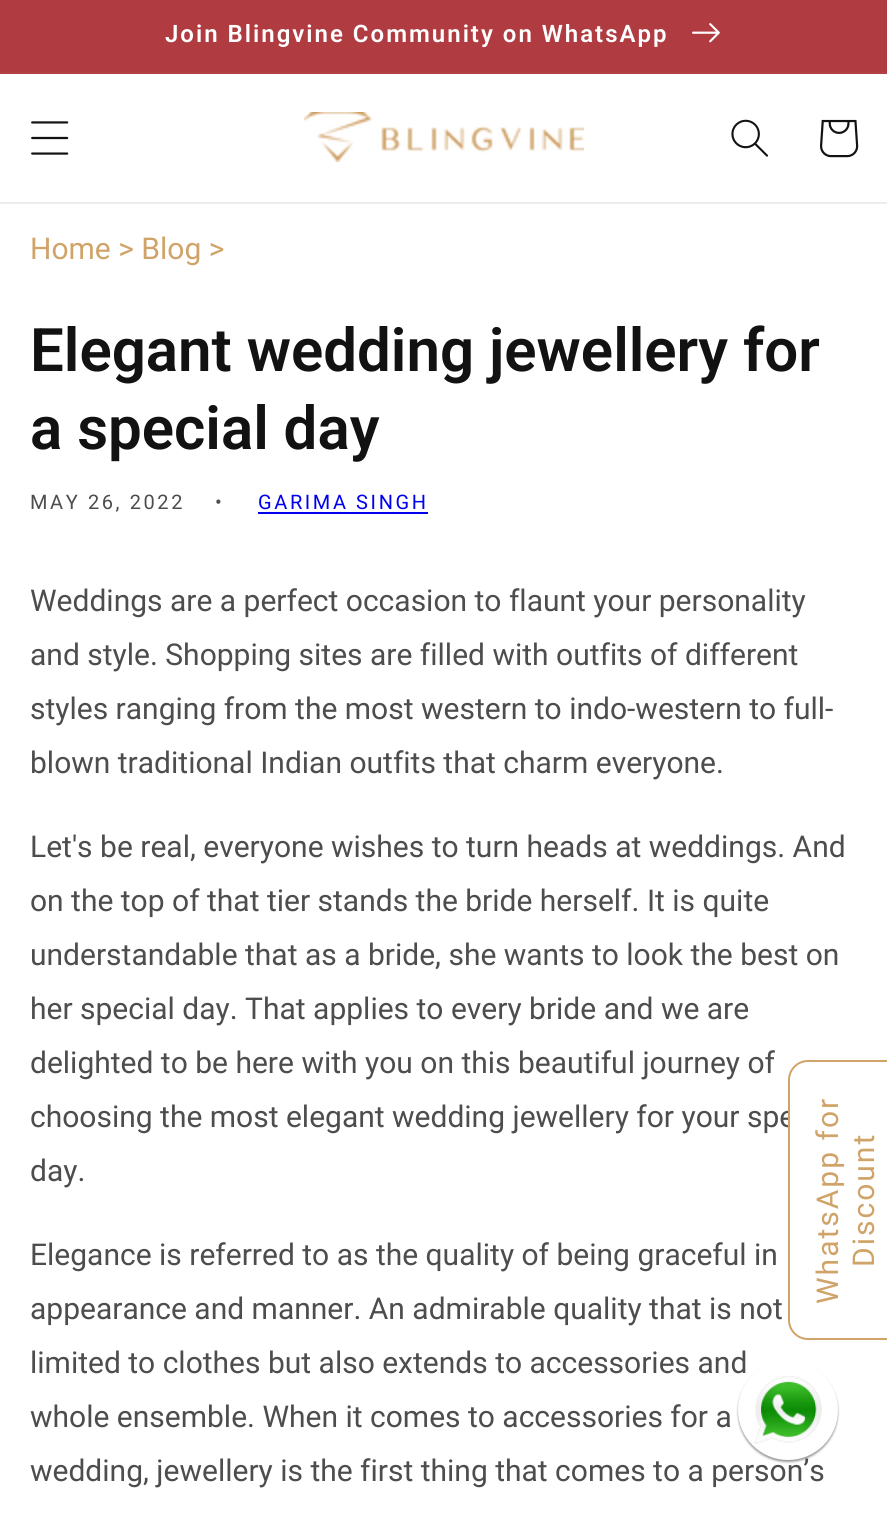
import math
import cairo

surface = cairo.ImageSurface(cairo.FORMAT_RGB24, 887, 1520)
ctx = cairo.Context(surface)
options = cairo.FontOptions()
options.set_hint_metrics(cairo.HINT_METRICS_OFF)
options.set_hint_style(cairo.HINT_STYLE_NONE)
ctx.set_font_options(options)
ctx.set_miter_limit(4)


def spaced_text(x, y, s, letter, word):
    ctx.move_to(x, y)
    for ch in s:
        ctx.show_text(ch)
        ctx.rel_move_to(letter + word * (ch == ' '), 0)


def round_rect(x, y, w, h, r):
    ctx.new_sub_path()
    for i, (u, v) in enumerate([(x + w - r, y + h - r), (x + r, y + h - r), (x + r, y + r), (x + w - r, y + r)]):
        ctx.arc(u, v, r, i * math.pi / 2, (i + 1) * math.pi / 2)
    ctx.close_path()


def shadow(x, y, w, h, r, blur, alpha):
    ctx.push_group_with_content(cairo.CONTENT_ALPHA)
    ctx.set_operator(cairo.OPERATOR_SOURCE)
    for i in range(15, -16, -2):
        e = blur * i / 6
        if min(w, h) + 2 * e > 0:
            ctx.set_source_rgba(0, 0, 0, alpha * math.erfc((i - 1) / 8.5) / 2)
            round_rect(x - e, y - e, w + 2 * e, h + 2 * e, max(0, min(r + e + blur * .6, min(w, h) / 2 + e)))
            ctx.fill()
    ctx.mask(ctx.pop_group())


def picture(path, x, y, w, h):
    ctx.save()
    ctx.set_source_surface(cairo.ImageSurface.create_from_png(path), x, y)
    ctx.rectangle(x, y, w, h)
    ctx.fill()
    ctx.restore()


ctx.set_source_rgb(1, 1, 1)
ctx.paint()
ctx.set_source_rgb(0.698, 0.251, 0.267)
ctx.rectangle(0, 72, 887, 2)
ctx.fill()
ctx.set_source_rgb(0.69, 0.231, 0.251)
ctx.rectangle(0, 0, 887, 72)
ctx.fill()
ctx.select_font_face("Roboto SemiBold")
ctx.set_font_size(24)
ctx.set_source_rgb(1, 1, 1)
spaced_text(165, 42, "Join Blingvine Community on WhatsApp", 2, 0)
picture("img1.png", 692, 23, 28, 20)
ctx.set_source_rgb(0.925, 0.925, 0.925)
ctx.rectangle(0, 202, 887, 2)
ctx.fill()
picture("img2.png", 31, 121, 38, 34)
picture("img3.png", 304, 112, 280, 50)
picture("img4.png", 731, 119, 37, 38)
picture("img5.png", 820, 119, 39, 39)
ctx.select_font_face("Roboto")
ctx.set_font_size(30)
ctx.set_source_rgb(0.816, 0.639, 0.412)
ctx.move_to(30, 259)
ctx.show_text("Home > Blog >")
ctx.select_font_face("Roboto SemiBold")
ctx.set_font_size(60)
ctx.set_source_rgb(0.071, 0.071, 0.071)
ctx.move_to(30, 371)
ctx.show_text("Elegant wedding jewellery for")
ctx.move_to(30, 449)
ctx.show_text("a special day")
ctx.select_font_face("Roboto")
ctx.set_font_size(20)
ctx.set_source_rgb(0.302, 0.302, 0.302)
spaced_text(30, 509, "MAY 26, 2022", 2.6, 0)
spaced_text(215, 509, "•", 2.6, 0)
ctx.set_source_rgb(0, 0, 0.933)
spaced_text(258, 509, "GARIMA SINGH", 2.6, 0)
ctx.rectangle(258, 512, 170, 2)
ctx.fill()
ctx.set_font_size(30)
ctx.set_source_rgb(0.302, 0.302, 0.302)
ctx.move_to(30, 611)
ctx.show_text("Weddings are a perfect occasion to flaunt your personality")
ctx.move_to(30, 665)
ctx.show_text("and style. Shopping sites are filled with outfits of different")
ctx.move_to(30, 719)
ctx.show_text("styles ranging from the most western to indo-western to full-")
ctx.move_to(30, 773)
ctx.show_text("blown traditional Indian outfits that charm everyone.")
ctx.move_to(30, 857)
ctx.show_text("Let's be real, everyone wishes to turn heads at weddings. And")
ctx.move_to(30, 911)
ctx.show_text("on the top of that tier stands the bride herself. It is quite")
ctx.move_to(30, 965)
ctx.show_text("understandable that as a bride, she wants to look the best on")
ctx.move_to(30, 1019)
ctx.show_text("her special day. That applies to every bride and we are")
ctx.move_to(30, 1073)
ctx.show_text("delighted to be here with you on this beautiful journey of")
ctx.move_to(30, 1127)
ctx.show_text("choosing the most elegant wedding jewellery for your spe")
ctx.move_to(30, 1181)
ctx.show_text("day.")
ctx.move_to(30, 1265)
ctx.show_text("Elegance is referred to as the quality of being graceful in")
ctx.move_to(30, 1319)
ctx.show_text("appearance and manner. An admirable quality that is not")
ctx.move_to(30, 1373)
ctx.show_text("limited to clothes but also extends to accessories and")
ctx.move_to(30, 1427)
ctx.show_text("whole ensemble. When it comes to accessories for a")
ctx.move_to(30, 1481)
ctx.show_text("wedding, jewellery is the first thing that comes to a person’s")
ctx.set_source_rgb(1, 1, 1)
ctx.new_path()
ctx.move_to(788, 1320)
ctx.line_to(788, 1080)
ctx.curve_to(788, 1069, 797, 1060, 808, 1060)
ctx.line_to(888, 1060)
ctx.line_to(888, 1340)
ctx.line_to(808, 1340)
ctx.curve_to(797, 1340, 788, 1331, 788, 1320)
ctx.close_path()
ctx.fill()
ctx.set_source_rgb(0.816, 0.639, 0.412)
ctx.set_fill_rule(cairo.FILL_RULE_EVEN_ODD)
ctx.new_path()
ctx.move_to(788, 1320)
ctx.line_to(788, 1080)
ctx.curve_to(788, 1069, 797, 1060, 808, 1060)
ctx.line_to(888, 1060)
ctx.line_to(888, 1340)
ctx.line_to(808, 1340)
ctx.curve_to(797, 1340, 788, 1331, 788, 1320)
ctx.close_path()
ctx.move_to(790, 1320)
ctx.line_to(790, 1080)
ctx.curve_to(790, 1070, 798, 1062, 808, 1062)
ctx.line_to(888, 1062)
ctx.line_to(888, 1338)
ctx.line_to(808, 1338)
ctx.curve_to(798, 1338, 790, 1330, 790, 1320)
ctx.close_path()
ctx.fill()
ctx.save()
ctx.translate(838, 1304)
ctx.rotate(-90 * math.pi / 180)
spaced_text(0, 0, "WhatsApp for", 2, 0)
ctx.restore()
ctx.save()
ctx.translate(874, 1267)
ctx.rotate(-90 * math.pi / 180)
spaced_text(0, 0, "Discount", 2, 0)
ctx.restore()
ctx.set_source_rgb(0.345, 0.345, 0.345)
shadow(738, 1362, 100, 100, 50, 1, 0.6)
ctx.set_source_rgb(1, 1, 1)
ctx.arc(788, 1410, 50, 0, 2 * math.pi)
ctx.fill()
picture("img6.png", 754, 1376, 68, 68)
surface.write_to_png("page.png")
